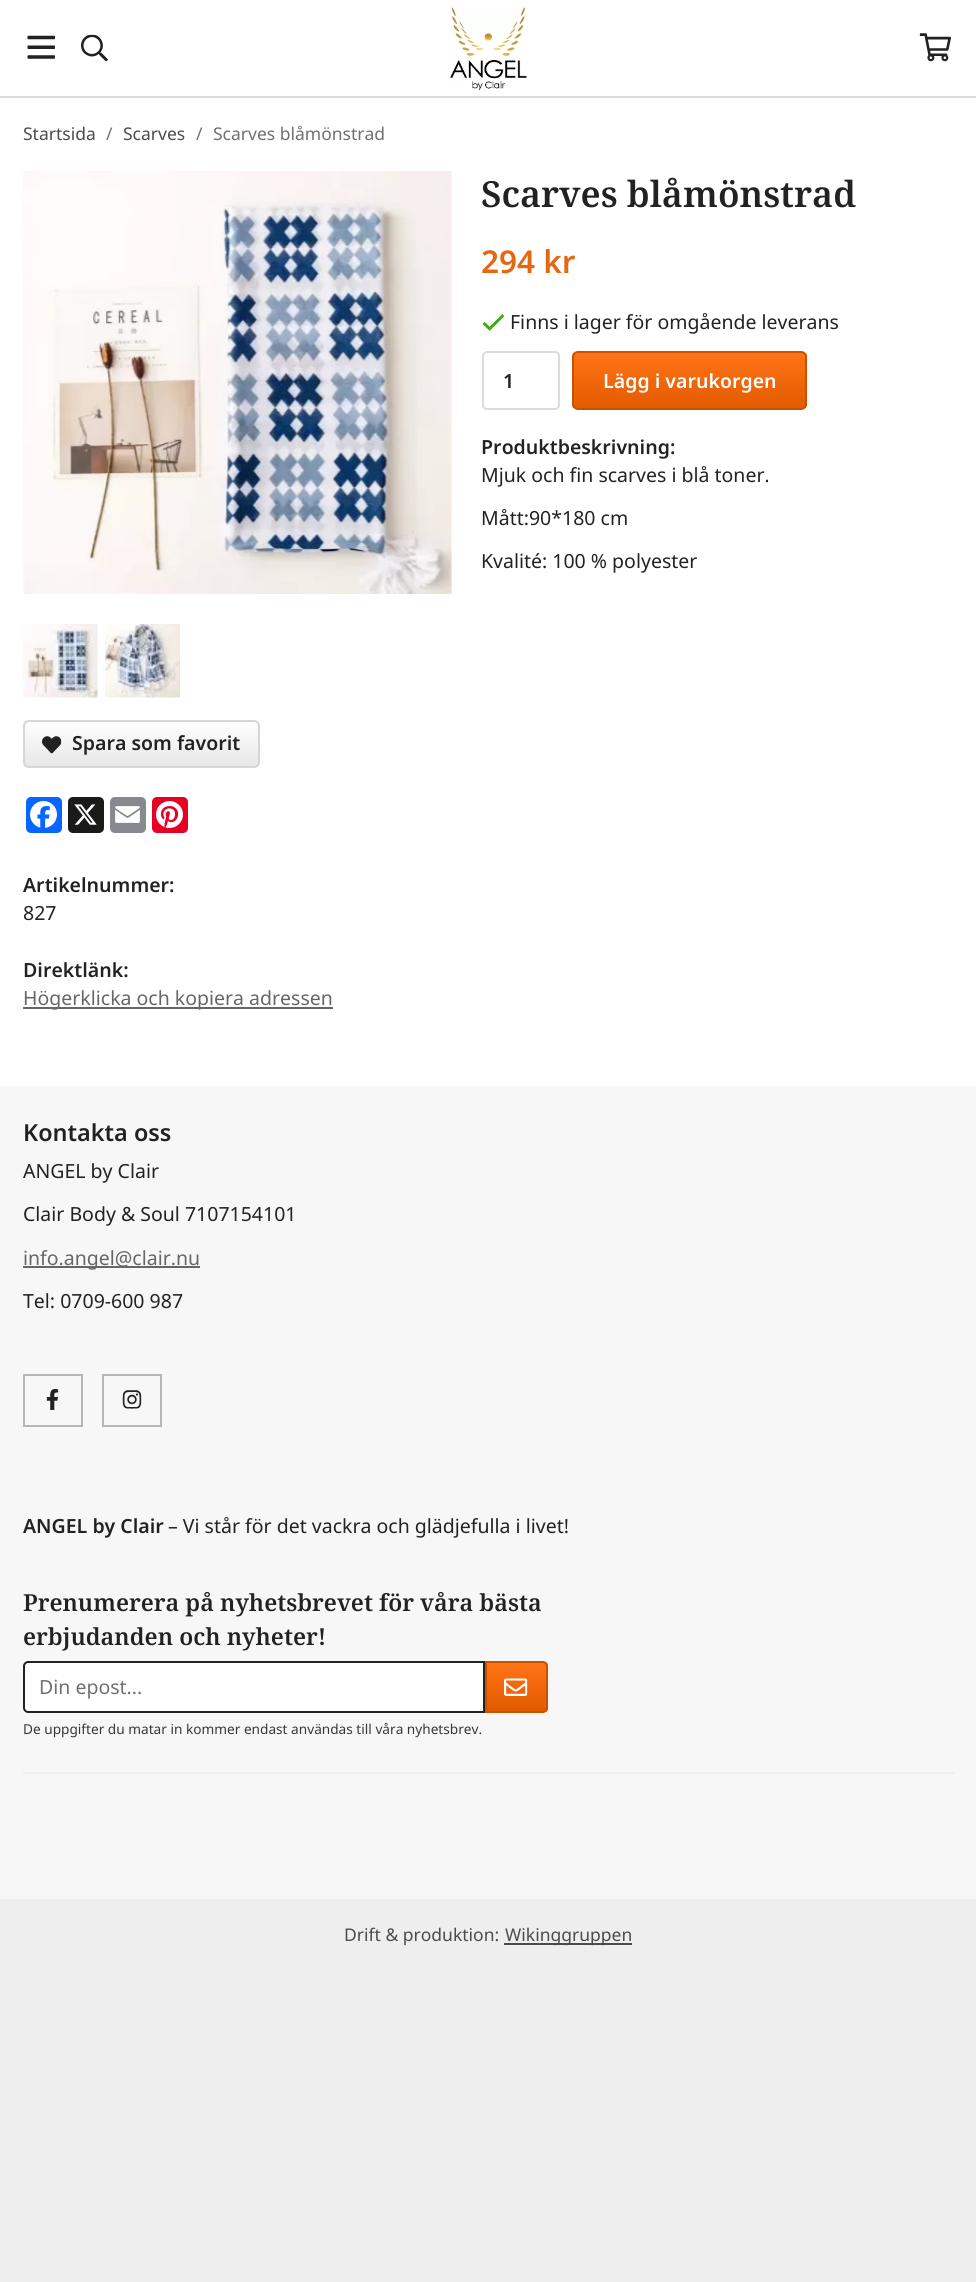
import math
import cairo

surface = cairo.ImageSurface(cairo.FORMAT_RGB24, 976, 2282)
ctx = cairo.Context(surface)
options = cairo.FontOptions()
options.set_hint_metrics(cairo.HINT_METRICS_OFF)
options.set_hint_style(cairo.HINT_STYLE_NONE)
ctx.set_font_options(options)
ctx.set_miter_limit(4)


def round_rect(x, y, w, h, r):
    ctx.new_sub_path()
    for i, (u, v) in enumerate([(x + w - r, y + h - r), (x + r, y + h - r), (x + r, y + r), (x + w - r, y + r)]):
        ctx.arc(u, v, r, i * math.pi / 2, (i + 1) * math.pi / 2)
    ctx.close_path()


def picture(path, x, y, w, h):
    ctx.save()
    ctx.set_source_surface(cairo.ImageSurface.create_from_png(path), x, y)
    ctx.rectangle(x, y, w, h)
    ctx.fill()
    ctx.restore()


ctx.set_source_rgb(0.933, 0.933, 0.933)
ctx.paint()
ctx.set_source_rgb(1, 1, 1)
ctx.rectangle(0, 0, 976, 96)
ctx.fill()
ctx.set_source_rgb(0.863, 0.863, 0.863)
ctx.rectangle(0, 96, 976, 2)
ctx.fill()
picture("img1.png", 27, 35, 28, 24)
picture("img2.png", 81, 34, 27, 28)
picture("img3.png", 450, 7, 77, 83)
picture("img4.png", 919, 33, 32, 29)
ctx.set_source_rgb(1, 1, 1)
ctx.rectangle(0, 98, 976, 988)
ctx.fill()
ctx.select_font_face("Noto Sans")
ctx.set_font_size(17.5)
ctx.set_source_rgb(0.294, 0.294, 0.294)
ctx.move_to(23, 140)
ctx.show_text("Startsida")
ctx.set_source_rgb(0.439, 0.439, 0.439)
ctx.move_to(106, 140)
ctx.show_text("/")
ctx.set_source_rgb(0.294, 0.294, 0.294)
ctx.move_to(123, 140)
ctx.show_text("Scarves")
ctx.set_source_rgb(0.439, 0.439, 0.439)
ctx.move_to(196, 140)
ctx.show_text("/")
ctx.move_to(213, 140)
ctx.show_text("Scarves blåmönstrad")
picture("img5.png", 23, 171, 429, 423)
picture("img6.png", 22, 624, 76, 74)
picture("img7.png", 105, 624, 75, 74)
ctx.select_font_face("Noto Serif SemiBold")
ctx.set_font_size(36)
ctx.set_source_rgb(0.133, 0.133, 0.133)
ctx.move_to(481, 207)
ctx.show_text("Scarves blåmönstrad")
ctx.select_font_face("Noto Sans SemiBold")
ctx.set_font_size(31.5)
ctx.set_source_rgb(0.902, 0.404, 0.071)
ctx.move_to(481, 273)
ctx.show_text("294 kr")
picture("img8.png", 482, 314, 23, 17)
ctx.select_font_face("Noto Sans")
ctx.set_font_size(19.5)
ctx.set_source_rgb(0.133, 0.133, 0.133)
ctx.move_to(510, 329)
ctx.show_text("Finns i lager för omgående leverans")
round_rect(483, 352, 76, 57, 4)
ctx.set_source_rgb(0.863, 0.863, 0.863)
ctx.stroke()
ctx.select_font_face("Noto Sans SemiBold")
ctx.set_source_rgb(0.133, 0.133, 0.133)
ctx.move_to(503, 388)
ctx.show_text("1")
ctx.save()
round_rect(572, 351, 235, 59, 6)
ctx.clip()
gradient = cairo.LinearGradient(689, 353, 689, 408)
gradient.add_color_stop_rgba(0, 1, 0.455, 0.09, 1)
gradient.add_color_stop_rgba(1, 0.89, 0.357, 0, 1)
ctx.set_source(gradient)
ctx.rectangle(572, 353, 235, 55)
ctx.fill()
ctx.restore()
round_rect(573, 352, 233, 57, 5)
ctx.set_source_rgb(0.792, 0.318, 0)
ctx.stroke()
ctx.set_source_rgb(1, 1, 1)
ctx.move_to(603, 388)
ctx.show_text("Lägg i varukorgen")
ctx.set_source_rgb(0.133, 0.133, 0.133)
ctx.move_to(481, 454)
ctx.show_text("Produktbeskrivning:")
ctx.select_font_face("Noto Sans")
ctx.move_to(481, 482)
ctx.show_text("Mjuk och fin scarves i blå toner.")
ctx.move_to(481, 525)
ctx.show_text("Mått:90*180 cm")
ctx.move_to(481, 568)
ctx.show_text("Kvalité: 100 % polyester")
ctx.save()
round_rect(23, 720, 237, 48, 6)
ctx.clip()
gradient = cairo.LinearGradient(141, 722, 141, 767)
gradient.add_color_stop_rgba(0, 1, 1, 1, 1)
gradient.add_color_stop_rgba(1, 0.902, 0.902, 0.902, 1)
ctx.set_source(gradient)
ctx.rectangle(23, 722, 237, 45)
ctx.fill()
ctx.restore()
round_rect(24, 721, 235, 46, 5)
ctx.set_source_rgb(0.839, 0.839, 0.839)
ctx.stroke()
picture("img9.png", 42, 736, 20, 18)
ctx.select_font_face("Noto Sans SemiBold")
ctx.set_source_rgb(0.133, 0.133, 0.133)
ctx.move_to(72, 750)
ctx.show_text("Spara som favorit")
ctx.set_source_rgb(0.031, 0.4, 1)
round_rect(26, 797, 36, 36, 5)
ctx.fill()
picture("img10.png", 30, 801, 27, 27)
ctx.set_source_rgb(0.102, 0.102, 0.102)
round_rect(68, 797, 36, 36, 5)
ctx.fill()
picture("img11.png", 74, 804, 23, 21)
ctx.set_source_rgb(0.533, 0.537, 0.565)
round_rect(110, 797, 36, 36, 5)
ctx.fill()
picture("img12.png", 115, 806, 25, 17)
ctx.set_source_rgb(0.902, 0, 0.137)
round_rect(152, 797, 36, 36, 5)
ctx.fill()
picture("img13.png", 156, 801, 27, 27)
ctx.set_source_rgb(0.133, 0.133, 0.133)
ctx.move_to(23, 892)
ctx.show_text("Artikelnummer:")
ctx.select_font_face("Noto Sans")
ctx.move_to(23, 920)
ctx.show_text("827")
ctx.select_font_face("Noto Sans SemiBold")
ctx.move_to(23, 977)
ctx.show_text("Direktlänk:")
ctx.set_source_rgb(0.4, 0.4, 0.4)
ctx.rectangle(23, 1007, 310, 2)
ctx.fill()
ctx.select_font_face("Noto Sans")
ctx.move_to(23, 1005)
ctx.show_text("Högerklicka och kopiera adressen")
ctx.set_source_rgb(0.965, 0.965, 0.965)
ctx.rectangle(0, 1086, 976, 813)
ctx.fill()
ctx.select_font_face("Noto Sans SemiBold")
ctx.set_font_size(23.4)
ctx.set_source_rgb(0.133, 0.133, 0.133)
ctx.move_to(23, 1141)
ctx.show_text("Kontakta oss")
ctx.select_font_face("Noto Sans")
ctx.set_font_size(19.5)
ctx.move_to(23, 1178)
ctx.show_text("ANGEL by Clair")
ctx.move_to(23, 1221)
ctx.show_text("Clair Body & Soul 7107154101")
ctx.set_source_rgb(0.4, 0.4, 0.4)
ctx.rectangle(23, 1266, 177, 2)
ctx.fill()
ctx.move_to(23, 1265)
ctx.show_text("info.angel@clair.nu")
ctx.set_source_rgb(0.133, 0.133, 0.133)
ctx.move_to(23, 1308)
ctx.show_text("Tel: 0709-600 987")
ctx.rectangle(24, 1375, 58, 51)
ctx.set_source_rgb(0.714, 0.714, 0.714)
ctx.stroke()
picture("img14.png", 46, 1389, 13, 21)
ctx.rectangle(103, 1375, 58, 51)
ctx.stroke()
picture("img15.png", 122, 1390, 20, 19)
ctx.select_font_face("Noto Sans SemiBold")
ctx.set_source_rgb(0.133, 0.133, 0.133)
ctx.move_to(23, 1533)
ctx.show_text("ANGEL by Clair")
ctx.select_font_face("Noto Sans")
ctx.move_to(168, 1533)
ctx.show_text("– Vi står för det vackra och glädjefulla i livet!")
ctx.select_font_face("Noto Serif SemiBold")
ctx.set_font_size(23.4)
ctx.move_to(23, 1611)
ctx.show_text("Prenumerera på nyhetsbrevet för våra bästa")
ctx.move_to(23, 1645)
ctx.show_text("erbjudanden och nyheter!")
ctx.set_source_rgb(1, 1, 1)
ctx.new_path()
ctx.move_to(28, 1662)
ctx.line_to(484, 1662)
ctx.line_to(484, 1712)
ctx.line_to(28, 1712)
ctx.curve_to(26, 1712, 24, 1710, 24, 1708)
ctx.line_to(24, 1666)
ctx.curve_to(24, 1664, 26, 1662, 28, 1662)
ctx.close_path()
ctx.fill_preserve()
ctx.set_source_rgb(0.133, 0.133, 0.133)
ctx.stroke()
ctx.select_font_face("Noto Sans")
ctx.set_font_size(19.5)
ctx.set_source_rgb(0.439, 0.439, 0.439)
ctx.move_to(39, 1694)
ctx.show_text("Din epost...")
ctx.save()
ctx.new_path()
ctx.move_to(485, 1661)
ctx.line_to(543, 1661)
ctx.curve_to(546, 1661, 548, 1663, 548, 1666)
ctx.line_to(548, 1708)
ctx.curve_to(548, 1711, 546, 1713, 543, 1713)
ctx.line_to(485, 1713)
ctx.close_path()
ctx.clip()
gradient = cairo.LinearGradient(516, 1662, 516, 1712)
gradient.add_color_stop_rgba(0, 1, 0.455, 0.09, 1)
gradient.add_color_stop_rgba(1, 0.89, 0.357, 0, 1)
ctx.set_source(gradient)
ctx.rectangle(487, 1662, 61, 50)
ctx.fill()
ctx.restore()
ctx.new_path()
ctx.move_to(486, 1662)
ctx.line_to(543, 1662)
ctx.curve_to(545, 1662, 547, 1664, 547, 1666)
ctx.line_to(547, 1708)
ctx.curve_to(547, 1710, 545, 1712, 543, 1712)
ctx.line_to(486, 1712)
ctx.close_path()
ctx.set_source_rgb(0.792, 0.318, 0)
ctx.stroke()
picture("img16.png", 504, 1678, 24, 18)
ctx.set_font_size(13.65)
ctx.set_source_rgb(0.216, 0.216, 0.216)
ctx.move_to(23, 1734)
ctx.show_text("De uppgifter du matar in kommer endast användas till våra nyhetsbrev.")
ctx.set_source_rgb(0.933, 0.933, 0.933)
ctx.rectangle(23, 1772, 931, 2)
ctx.fill()
ctx.set_font_size(17.5)
ctx.set_source_rgb(0.294, 0.294, 0.294)
ctx.move_to(344, 1941)
ctx.show_text("Drift & produktion:")
ctx.rectangle(504, 1943, 128, 2)
ctx.fill()
ctx.move_to(505, 1941)
ctx.show_text("Wikinggruppen")
surface.write_to_png("page.png")
